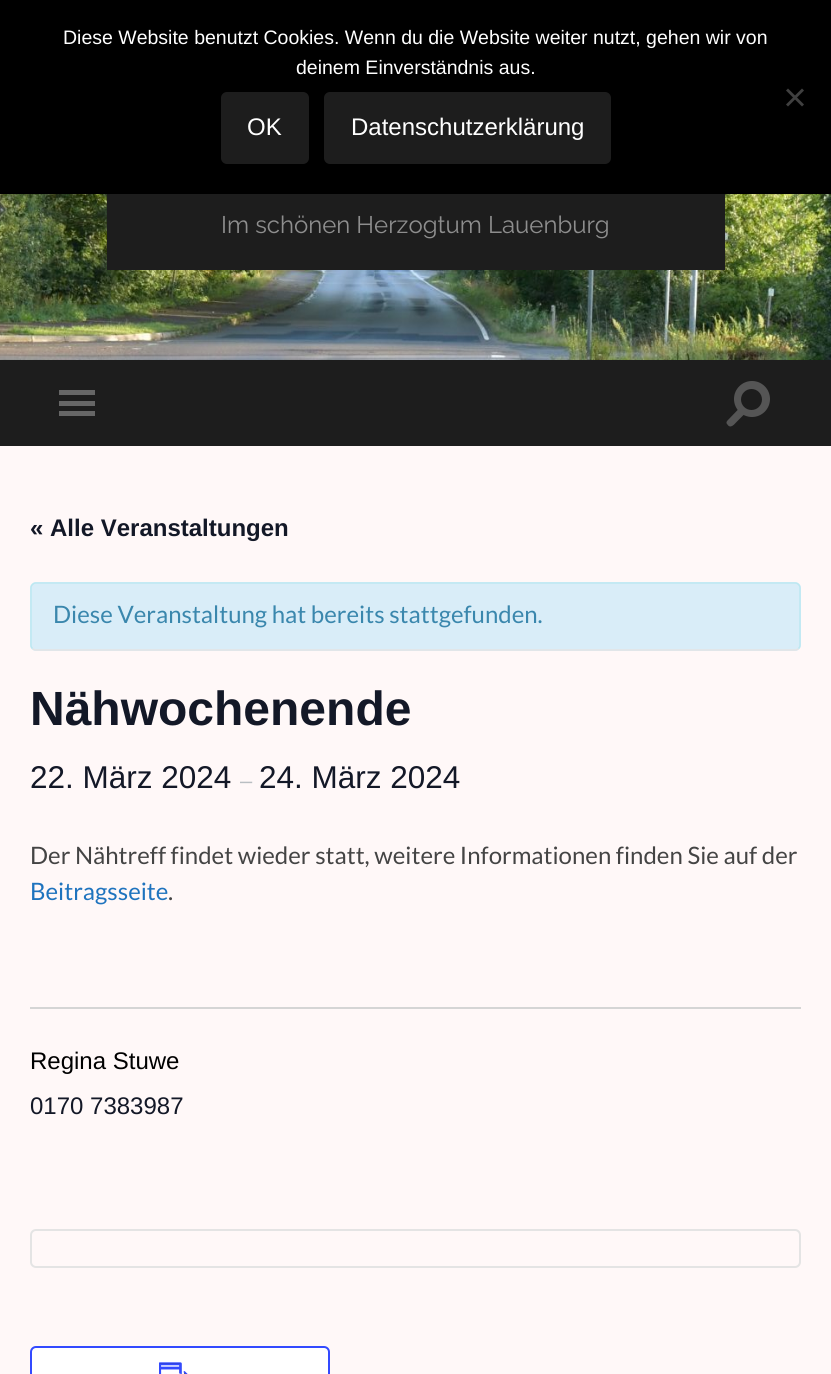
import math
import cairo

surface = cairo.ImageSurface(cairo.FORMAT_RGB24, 831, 1374)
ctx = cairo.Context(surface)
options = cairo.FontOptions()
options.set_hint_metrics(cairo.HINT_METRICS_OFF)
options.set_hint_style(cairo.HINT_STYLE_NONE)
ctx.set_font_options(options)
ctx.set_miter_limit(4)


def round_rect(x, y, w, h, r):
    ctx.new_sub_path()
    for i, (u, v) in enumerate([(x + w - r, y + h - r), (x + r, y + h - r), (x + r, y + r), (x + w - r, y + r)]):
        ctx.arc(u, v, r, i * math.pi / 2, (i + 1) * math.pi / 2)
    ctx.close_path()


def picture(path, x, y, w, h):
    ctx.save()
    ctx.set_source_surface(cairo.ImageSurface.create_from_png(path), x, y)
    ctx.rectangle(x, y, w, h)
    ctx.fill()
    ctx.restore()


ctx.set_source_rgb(1, 0.969, 0.969)
ctx.paint()
ctx.set_source_rgb(0, 0, 0)
ctx.rectangle(0, 0, 831, 194)
ctx.fill()
ctx.select_font_face("Liberation Sans")
ctx.set_font_size(19.5)
ctx.set_source_rgb(1, 1, 1)
ctx.move_to(63, 44)
ctx.show_text("Diese Website benutzt Cookies. Wenn du die Website weiter nutzt, gehen wir von")
ctx.move_to(296, 74)
ctx.show_text("deinem Einverständnis aus.")
ctx.set_source_rgb(0.251, 0.251, 0.251)
ctx.new_path()
ctx.move_to(802, 88.5)
ctx.line_to(804, 90.5)
ctx.line_to(788, 106.5)
ctx.line_to(786, 104.5)
ctx.close_path()
ctx.fill()
ctx.new_path()
ctx.move_to(786, 90.5)
ctx.line_to(788, 88.5)
ctx.line_to(804, 104.5)
ctx.line_to(802, 106.5)
ctx.close_path()
ctx.fill()
ctx.set_source_rgb(0.114, 0.114, 0.114)
round_rect(221, 92, 88, 72, 6)
ctx.fill()
ctx.set_font_size(24)
ctx.set_source_rgb(1, 1, 1)
ctx.move_to(247, 135)
ctx.show_text("OK")
ctx.set_source_rgb(0.114, 0.114, 0.114)
round_rect(324, 92, 287, 72, 6)
ctx.fill()
ctx.set_source_rgb(1, 1, 1)
ctx.move_to(351, 135)
ctx.show_text("Datenschutzerklärung")
picture("img1.png", 0, 194, 831, 166)
ctx.set_source_rgb(0.114, 0.114, 0.114)
ctx.rectangle(107, 194, 618, 76)
ctx.fill()
ctx.select_font_face("Raleway Thin")
ctx.set_source_rgb(0.557, 0.557, 0.557)
ctx.move_to(221, 233)
ctx.show_text("Im schönen Herzogtum Lauenburg")
ctx.set_source_rgb(0.114, 0.114, 0.114)
ctx.rectangle(0, 360, 831, 86)
ctx.fill()
ctx.set_source_rgb(0.4, 0.4, 0.4)
ctx.rectangle(59, 390, 36, 5)
ctx.fill()
ctx.rectangle(59, 401, 36, 5)
ctx.fill()
ctx.rectangle(59, 411, 36, 5)
ctx.fill()
ctx.set_source_rgb(0.333, 0.333, 0.333)
ctx.arc(752, 399, 18, 0, 2 * math.pi)
ctx.fill()
ctx.set_source_rgb(0.114, 0.114, 0.114)
ctx.arc(751.5, 399.5, 10.5, 0, 2 * math.pi)
ctx.fill()
ctx.set_source_rgb(0.333, 0.333, 0.333)
ctx.new_path()
ctx.move_to(727.5, 420.5)
ctx.line_to(740, 407.5)
ctx.line_to(745.5, 413)
ctx.line_to(737, 421.5)
ctx.curve_to(734, 424.5, 730.5, 429.5, 727, 424)
ctx.curve_to(726, 423, 726.5, 421.5, 727.5, 420.5)
ctx.close_path()
ctx.fill()
ctx.select_font_face("Liberation Sans", cairo.FONT_SLANT_NORMAL, cairo.FONT_WEIGHT_BOLD)
ctx.set_source_rgb(0.078, 0.094, 0.153)
ctx.move_to(30, 536)
ctx.show_text("« Alle Veranstaltungen")
ctx.set_source_rgb(0.851, 0.929, 0.969)
round_rect(30, 582, 771, 69, 6)
ctx.fill()
ctx.new_path()
ctx.move_to(798.5, 648.5)
ctx.curve_to(797.5, 649.5, 796.5, 650, 795, 650)
ctx.line_to(36, 650)
ctx.curve_to(34.5, 650, 33.5, 649.5, 32.5, 648.5)
ctx.set_source_rgb(0.894, 0.894, 0.894)
ctx.set_line_width(1.5)
ctx.stroke()
ctx.new_path()
ctx.move_to(32.5, 648.5)
ctx.curve_to(31.5, 647.5, 31, 646.5, 31, 645)
ctx.line_to(31, 588)
ctx.curve_to(31, 586.5, 31.5, 585.5, 32.5, 584.5)
ctx.curve_to(33.5, 583.5, 34.5, 583, 36, 583)
ctx.line_to(795, 583)
ctx.curve_to(796.5, 583, 797.5, 583.5, 798.5, 584.5)
ctx.curve_to(799.5, 585.5, 800, 586.5, 800, 588)
ctx.line_to(800, 645)
ctx.curve_to(800, 646.5, 799.5, 647.5, 798.5, 648.5)
ctx.set_source_rgb(0.737, 0.91, 0.945)
ctx.stroke()
ctx.select_font_face("Lato")
ctx.set_source_rgb(0.227, 0.529, 0.678)
ctx.move_to(53, 623)
ctx.show_text("Diese Veranstaltung hat bereits stattgefunden.")
ctx.select_font_face("Liberation Sans", cairo.FONT_SLANT_NORMAL, cairo.FONT_WEIGHT_BOLD)
ctx.set_font_size(48)
ctx.set_source_rgb(0.078, 0.094, 0.153)
ctx.move_to(30, 725)
ctx.show_text("Nähwochenende")
ctx.select_font_face("Liberation Sans")
ctx.set_font_size(31.5)
ctx.move_to(30, 788)
ctx.show_text("22. März 2024")
ctx.set_font_size(22)
ctx.set_source_rgb(0.725, 0.745, 0.761)
ctx.move_to(240, 788)
ctx.show_text("–")
ctx.set_font_size(31.5)
ctx.set_source_rgb(0.078, 0.094, 0.153)
ctx.move_to(259, 788)
ctx.show_text("24. März 2024")
ctx.select_font_face("Lato")
ctx.set_font_size(24)
ctx.set_source_rgb(0.267, 0.267, 0.267)
ctx.move_to(30, 864)
ctx.show_text("Der Nähtreff findet wieder statt, weitere Informationen finden Sie auf der")
ctx.set_source_rgb(0.118, 0.451, 0.745)
ctx.move_to(30, 900)
ctx.show_text("Beitragsseite")
ctx.set_source_rgb(0.267, 0.267, 0.267)
ctx.move_to(168, 900)
ctx.show_text(".")
ctx.set_source_rgb(0.835, 0.835, 0.835)
ctx.rectangle(30, 1007, 771, 2)
ctx.fill()
ctx.select_font_face("Liberation Sans")
ctx.set_source_rgb(0, 0, 0)
ctx.move_to(30, 1069)
ctx.show_text("Regina Stuwe")
ctx.set_source_rgb(0.078, 0.094, 0.153)
ctx.move_to(30, 1114)
ctx.show_text("0170 7383987")
round_rect(31, 1230, 769, 37, 5)
ctx.set_source_rgb(0.894, 0.894, 0.894)
ctx.set_line_width(2)
ctx.stroke()
ctx.set_source_rgb(1, 1, 1)
round_rect(31, 1347, 298, 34, 5)
ctx.fill_preserve()
ctx.set_source_rgb(0.2, 0.29, 1)
ctx.stroke()
picture("img2.png", 159, 1362, 29, 12)
surface.write_to_png("page.png")
